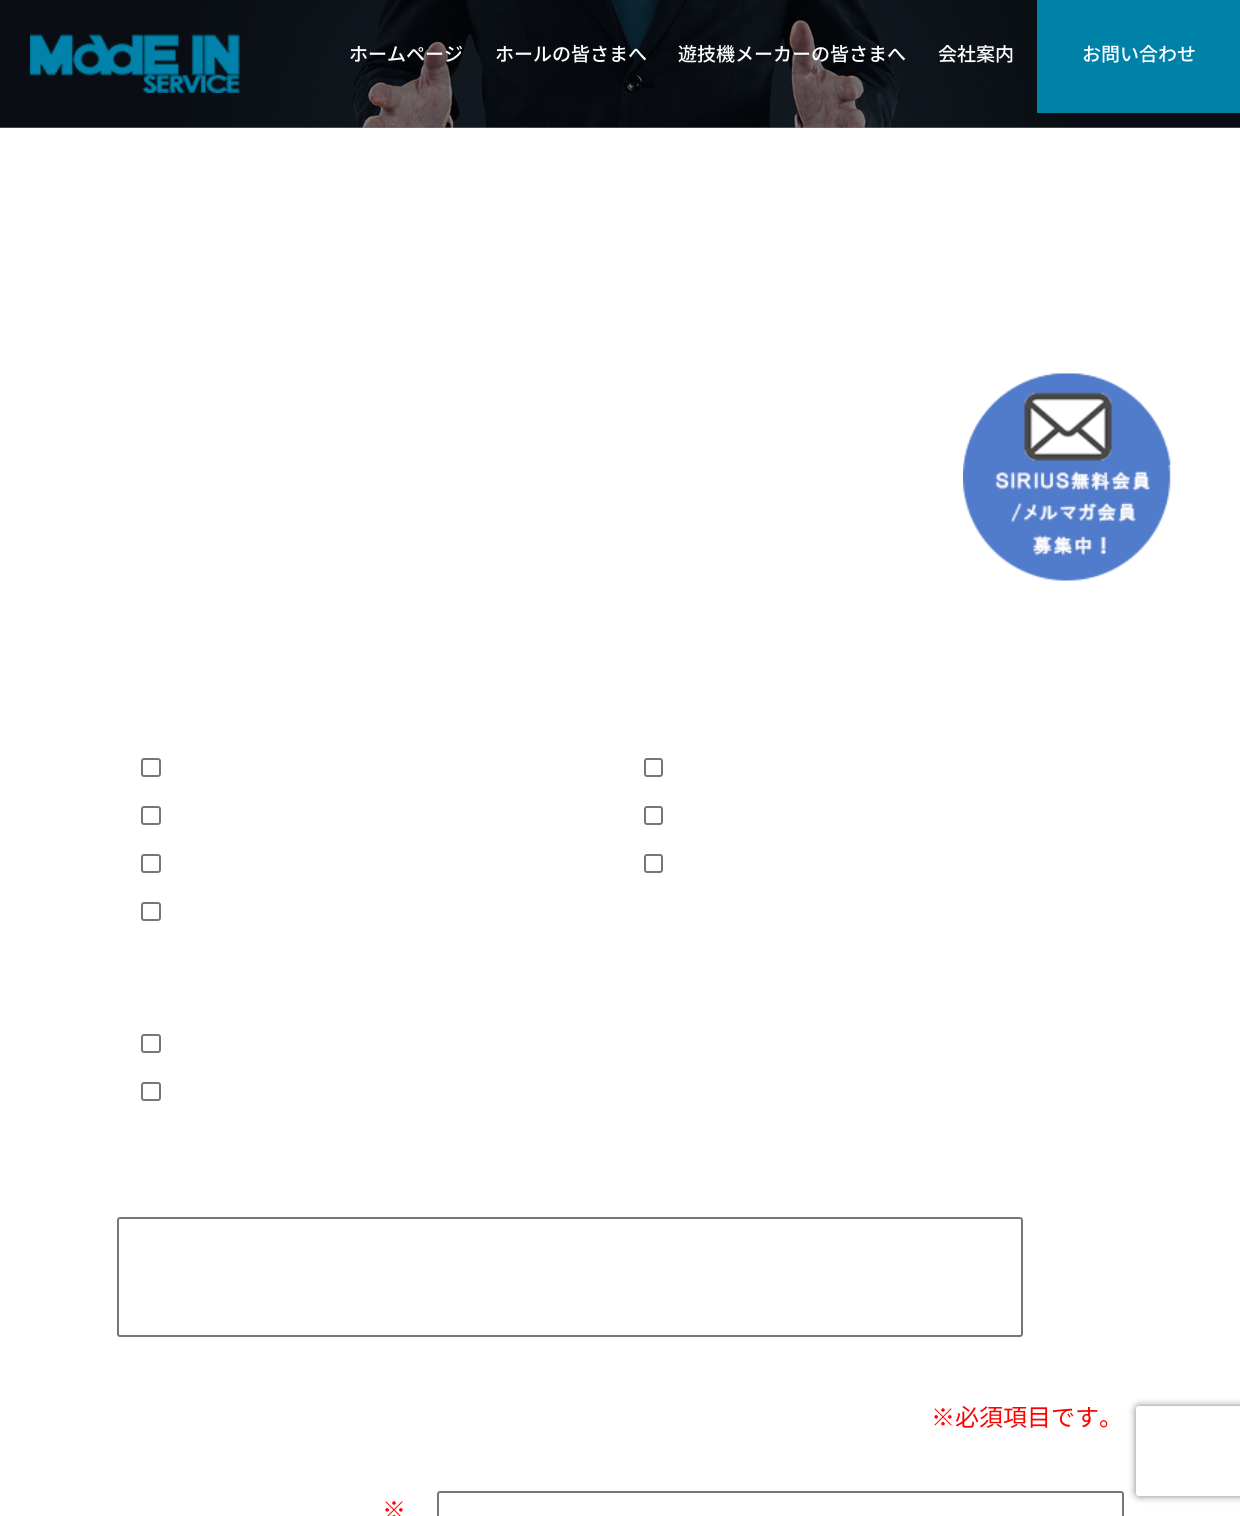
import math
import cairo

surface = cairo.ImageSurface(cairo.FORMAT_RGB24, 1240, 1516)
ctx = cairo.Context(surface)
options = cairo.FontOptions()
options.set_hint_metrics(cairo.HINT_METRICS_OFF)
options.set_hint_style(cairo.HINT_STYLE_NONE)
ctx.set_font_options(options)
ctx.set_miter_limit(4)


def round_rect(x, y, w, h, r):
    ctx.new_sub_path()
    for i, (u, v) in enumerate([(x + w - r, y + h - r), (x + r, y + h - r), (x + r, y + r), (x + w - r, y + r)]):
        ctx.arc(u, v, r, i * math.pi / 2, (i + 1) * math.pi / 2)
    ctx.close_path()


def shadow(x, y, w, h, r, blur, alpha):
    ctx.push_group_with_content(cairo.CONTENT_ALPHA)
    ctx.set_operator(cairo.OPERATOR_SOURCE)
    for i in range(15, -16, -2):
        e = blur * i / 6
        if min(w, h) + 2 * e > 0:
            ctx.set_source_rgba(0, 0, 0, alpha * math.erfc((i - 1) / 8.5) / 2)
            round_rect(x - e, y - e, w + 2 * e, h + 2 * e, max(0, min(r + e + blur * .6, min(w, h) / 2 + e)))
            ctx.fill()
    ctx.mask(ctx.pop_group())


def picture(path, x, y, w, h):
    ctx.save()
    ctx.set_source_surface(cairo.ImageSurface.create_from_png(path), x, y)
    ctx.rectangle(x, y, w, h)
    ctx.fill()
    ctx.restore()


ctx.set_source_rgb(1, 1, 1)
ctx.paint()
ctx.set_source_rgb(0.502, 0.502, 0.502)
ctx.rectangle(0, 127, 1240, 1)
ctx.fill()
picture("img2.png", 0, 0, 1240, 128)
picture("img1.png", 30, 34, 210, 59)
ctx.select_font_face("Noto Sans CJK JP Medium")
ctx.set_font_size(19)
ctx.set_source_rgb(1, 1, 1)
ctx.move_to(349, 61)
ctx.show_text("ホームページ")
ctx.move_to(495, 61)
ctx.show_text("ホールの皆さまへ")
ctx.move_to(678, 61)
ctx.show_text("遊技機メーカーの皆さまへ")
ctx.move_to(938, 61)
ctx.show_text("会社案内")
ctx.set_source_rgb(0, 0.506, 0.659)
ctx.rectangle(1037, 0, 203, 113)
ctx.fill()
ctx.set_source_rgb(1, 1, 1)
ctx.move_to(1082, 61)
ctx.show_text("お問い合わせ")
picture("img3.png", 963, 373, 209, 208)
round_rect(142, 759, 18, 17, 2)
ctx.set_source_rgb(0.463, 0.463, 0.463)
ctx.stroke()
round_rect(645, 759, 17, 17, 2)
ctx.stroke()
round_rect(142, 807, 18, 17, 2)
ctx.stroke()
round_rect(645, 807, 17, 17, 2)
ctx.stroke()
round_rect(142, 855, 18, 17, 2)
ctx.stroke()
round_rect(645, 855, 17, 17, 2)
ctx.stroke()
round_rect(142, 903, 18, 17, 2)
ctx.stroke()
round_rect(142, 1035, 18, 17, 2)
ctx.stroke()
round_rect(142, 1083, 18, 17, 2)
ctx.stroke()
round_rect(118, 1218, 904, 118, 2)
ctx.stroke()
ctx.select_font_face("Noto Sans CJK JP")
ctx.set_font_size(24)
ctx.set_source_rgb(1, 0, 0)
ctx.move_to(931, 1426)
ctx.show_text("※必須項目です。")
ctx.move_to(382, 1519)
ctx.show_text("※")
round_rect(438, 1492, 685, 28, 2)
ctx.set_source_rgb(0.463, 0.463, 0.463)
ctx.stroke()
ctx.save()
ctx.set_fill_rule(cairo.FILL_RULE_EVEN_ODD)
ctx.new_path()
ctx.move_to(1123, 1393)
ctx.line_to(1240, 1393)
ctx.line_to(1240, 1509)
ctx.line_to(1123, 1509)
ctx.close_path()
ctx.move_to(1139, 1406)
ctx.line_to(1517, 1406)
ctx.curve_to(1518.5, 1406, 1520, 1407.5, 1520, 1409)
ctx.line_to(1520, 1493)
ctx.curve_to(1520, 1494.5, 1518.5, 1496, 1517, 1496)
ctx.line_to(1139, 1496)
ctx.curve_to(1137.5, 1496, 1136, 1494.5, 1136, 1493)
ctx.line_to(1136, 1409)
ctx.curve_to(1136, 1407.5, 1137.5, 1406, 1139, 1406)
ctx.close_path()
ctx.clip()
ctx.set_source_rgb(0.502, 0.502, 0.502)
shadow(1136, 1406, 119, 90, 3, 4, 1)
ctx.restore()
surface.write_to_png("page.png")
